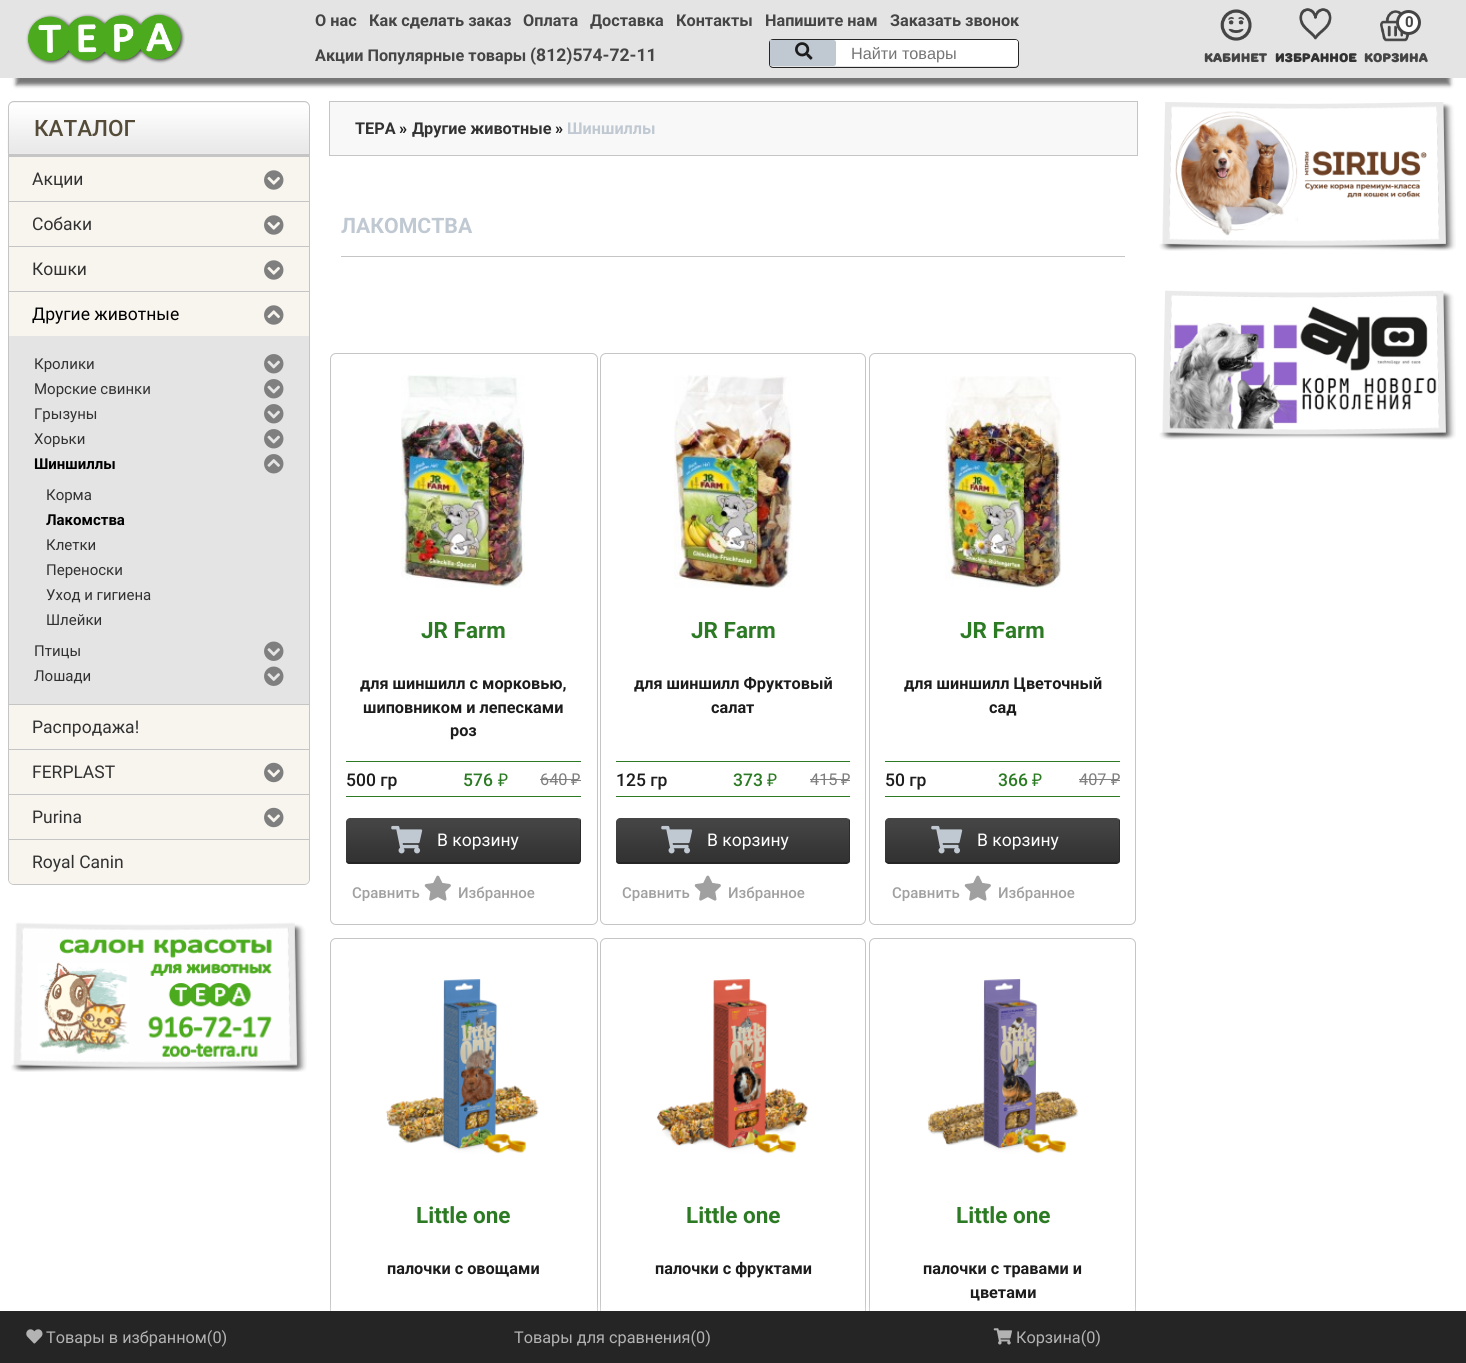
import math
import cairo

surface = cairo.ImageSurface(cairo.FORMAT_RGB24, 1466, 1363)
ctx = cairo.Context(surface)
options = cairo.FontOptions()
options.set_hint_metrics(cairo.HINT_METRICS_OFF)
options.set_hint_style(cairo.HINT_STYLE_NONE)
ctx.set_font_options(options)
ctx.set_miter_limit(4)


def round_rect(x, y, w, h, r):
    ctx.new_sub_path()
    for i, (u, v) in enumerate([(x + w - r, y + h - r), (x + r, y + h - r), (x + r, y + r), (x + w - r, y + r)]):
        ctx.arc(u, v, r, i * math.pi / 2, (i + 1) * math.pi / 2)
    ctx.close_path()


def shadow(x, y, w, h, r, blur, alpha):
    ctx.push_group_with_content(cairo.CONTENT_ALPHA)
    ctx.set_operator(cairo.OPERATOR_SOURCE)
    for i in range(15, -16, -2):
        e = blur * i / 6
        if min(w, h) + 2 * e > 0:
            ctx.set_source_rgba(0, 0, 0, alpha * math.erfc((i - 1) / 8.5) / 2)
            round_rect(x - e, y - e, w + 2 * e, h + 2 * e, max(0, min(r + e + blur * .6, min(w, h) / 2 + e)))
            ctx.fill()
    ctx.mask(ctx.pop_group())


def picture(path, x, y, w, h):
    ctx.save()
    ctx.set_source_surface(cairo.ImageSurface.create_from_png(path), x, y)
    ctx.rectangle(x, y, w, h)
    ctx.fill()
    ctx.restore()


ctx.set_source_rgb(1, 1, 1)
ctx.paint()
ctx.set_source_rgb(0.22, 0.22, 0.22)
shadow(16, 40, 1434, 45, 0, 2, 0.69)
ctx.set_source_rgb(0.894, 0.894, 0.894)
ctx.rectangle(0, 0, 1466, 78)
ctx.fill()
picture("img1.png", 26, 12, 159, 53)
ctx.select_font_face("Roboto", cairo.FONT_SLANT_NORMAL, cairo.FONT_WEIGHT_BOLD)
ctx.set_font_size(16.25)
ctx.set_source_rgb(0.271, 0.271, 0.271)
ctx.move_to(315, 26)
ctx.show_text("О нас")
ctx.move_to(369, 26)
ctx.show_text("Как сделать заказ")
ctx.move_to(523, 26)
ctx.show_text("Оплата")
ctx.move_to(590, 26)
ctx.show_text("Доставка")
ctx.move_to(676, 26)
ctx.show_text("Контакты")
ctx.move_to(765, 26)
ctx.show_text("Напишите нам")
ctx.move_to(890, 26)
ctx.show_text("Заказать звонок")
ctx.move_to(315, 61)
ctx.show_text("Акции Популярные товары")
ctx.set_font_size(17.5)
ctx.move_to(530, 61)
ctx.show_text("(812)574-72-11")
round_rect(769.5, 39.5, 249, 28, 3.5)
ctx.set_source_rgb(0.149, 0.149, 0.149)
ctx.set_line_width(1)
ctx.stroke()
ctx.set_source_rgb(1, 1, 1)
round_rect(770, 40, 248, 26, 2.5)
ctx.fill()
ctx.set_source_rgb(0.753, 0.788, 0.824)
ctx.new_path()
ctx.move_to(770, 40)
ctx.line_to(833.5, 40)
ctx.curve_to(835, 40, 836, 41, 836, 42.5)
ctx.line_to(836, 63.5)
ctx.curve_to(836, 65, 835, 66, 833.5, 66)
ctx.line_to(770, 66)
ctx.close_path()
ctx.fill()
picture("img2.png", 795, 42, 18, 18)
ctx.select_font_face("Liberation Sans")
ctx.set_font_size(16.25)
ctx.set_source_rgb(0.459, 0.459, 0.459)
ctx.move_to(851, 59)
ctx.show_text("Найти товары")
picture("img3.png", 1220, 9, 32, 32)
ctx.select_font_face("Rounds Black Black")
ctx.set_font_size(12.5)
ctx.set_source_rgb(0.271, 0.271, 0.271)
ctx.move_to(1204, 62)
ctx.show_text("КАБИНЕТ")
picture("img4.png", 1299, 8, 33, 32)
ctx.set_source_rgb(0.196, 0.196, 0.196)
ctx.move_to(1275, 62)
ctx.show_text("ИЗБРАННОЕ")
picture("img5.png", 1380, 10, 30, 32)
ctx.set_source_rgb(1, 1, 1)
ctx.arc(1408.5, 22.5, 11, 0, 2 * math.pi)
ctx.fill_preserve()
ctx.set_source_rgb(0.271, 0.271, 0.271)
ctx.set_line_width(3)
ctx.stroke()
ctx.select_font_face("Roboto", cairo.FONT_SLANT_NORMAL, cairo.FONT_WEIGHT_BOLD)
ctx.set_font_size(15)
ctx.move_to(1405, 27)
ctx.show_text("0")
ctx.select_font_face("Rounds Black Black")
ctx.set_font_size(12.5)
ctx.move_to(1364, 62)
ctx.show_text("КОРЗИНА")
ctx.set_source_rgb(0.918, 0.914, 0.914)
ctx.new_path()
ctx.move_to(14, 101)
ctx.line_to(304, 101)
ctx.curve_to(307.5, 101, 310, 103.5, 310, 107)
ctx.line_to(310, 155)
ctx.line_to(8, 155)
ctx.line_to(8, 107)
ctx.curve_to(8, 103.5, 10.5, 101, 14, 101)
ctx.close_path()
ctx.fill()
picture("img6.png", 7, 102, 303, 51)
ctx.new_path()
ctx.move_to(14, 101.5)
ctx.line_to(304, 101.5)
ctx.curve_to(307, 101.5, 309.5, 104, 309.5, 107)
ctx.line_to(309.5, 154.5)
ctx.line_to(8.5, 154.5)
ctx.line_to(8.5, 107)
ctx.curve_to(8.5, 104, 11, 101.5, 14, 101.5)
ctx.close_path()
ctx.set_source_rgb(0.773, 0.773, 0.773)
ctx.set_line_width(1)
ctx.stroke()
ctx.select_font_face("Roboto Medium")
ctx.set_font_size(22.5)
ctx.set_source_rgb(0.329, 0.298, 0.224)
ctx.move_to(34, 136)
ctx.show_text("КАТАЛОГ")
ctx.set_source_rgb(0.969, 0.957, 0.933)
ctx.new_path()
ctx.move_to(8.5, 155.5)
ctx.line_to(309.5, 155.5)
ctx.line_to(309.5, 879)
ctx.curve_to(309.5, 882, 307, 884.5, 304, 884.5)
ctx.line_to(14, 884.5)
ctx.curve_to(11, 884.5, 8.5, 882, 8.5, 879)
ctx.close_path()
ctx.fill_preserve()
ctx.set_source_rgb(0.773, 0.773, 0.773)
ctx.stroke()
ctx.rectangle(9, 156, 300, 1)
ctx.fill()
ctx.select_font_face("Roboto")
ctx.set_font_size(17.5)
ctx.set_source_rgb(0.196, 0.196, 0.196)
ctx.move_to(32, 185)
ctx.show_text("Акции")
picture("img7.png", 264, 170, 20, 20)
ctx.set_source_rgb(0.773, 0.773, 0.773)
ctx.rectangle(9, 201, 300, 1)
ctx.fill()
ctx.set_source_rgb(0.196, 0.196, 0.196)
ctx.move_to(32, 230)
ctx.show_text("Собаки")
picture("img7.png", 264, 215, 20, 20)
ctx.set_source_rgb(0.773, 0.773, 0.773)
ctx.rectangle(9, 246, 300, 1)
ctx.fill()
ctx.set_source_rgb(0.196, 0.196, 0.196)
ctx.move_to(32, 275)
ctx.show_text("Кошки")
picture("img7.png", 264, 260, 20, 20)
ctx.set_source_rgb(0.773, 0.773, 0.773)
ctx.rectangle(9, 291, 300, 1)
ctx.fill()
ctx.set_source_rgb(0, 0, 0)
ctx.move_to(32, 320)
ctx.show_text("Другие животные")
picture("img8.png", 264, 305, 20, 20)
ctx.set_source_rgb(0.894, 0.894, 0.894)
ctx.rectangle(9, 336, 300, 368)
ctx.fill()
ctx.set_font_size(15)
ctx.set_source_rgb(0.196, 0.196, 0.196)
ctx.move_to(34, 369)
ctx.show_text("Кролики")
picture("img9.png", 264, 354, 20, 20)
ctx.move_to(34, 394)
ctx.show_text("Морские свинки")
picture("img9.png", 264, 379, 20, 20)
ctx.move_to(34, 419)
ctx.show_text("Грызуны")
picture("img9.png", 264, 404, 20, 20)
ctx.move_to(34, 444)
ctx.show_text("Хорьки")
picture("img9.png", 264, 429, 20, 20)
ctx.select_font_face("Roboto", cairo.FONT_SLANT_NORMAL, cairo.FONT_WEIGHT_BOLD)
ctx.set_source_rgb(0, 0, 0)
ctx.move_to(34, 469)
ctx.show_text("Шиншиллы")
picture("img10.png", 264, 454, 20, 20)
ctx.select_font_face("Roboto")
ctx.set_source_rgb(0.196, 0.196, 0.196)
ctx.move_to(46, 500)
ctx.show_text("Корма")
ctx.select_font_face("Roboto", cairo.FONT_SLANT_NORMAL, cairo.FONT_WEIGHT_BOLD)
ctx.set_source_rgb(0, 0, 0)
ctx.move_to(46, 525)
ctx.show_text("Лакомства")
ctx.select_font_face("Roboto")
ctx.set_source_rgb(0.196, 0.196, 0.196)
ctx.move_to(46, 550)
ctx.show_text("Клетки")
ctx.move_to(46, 575)
ctx.show_text("Переноски")
ctx.move_to(46, 600)
ctx.show_text("Уход и гигиена")
ctx.move_to(46, 625)
ctx.show_text("Шлейки")
ctx.move_to(34, 656)
ctx.show_text("Птицы")
picture("img11.png", 264, 641, 20, 20)
ctx.move_to(34, 681)
ctx.show_text("Лошади")
picture("img11.png", 264, 666, 20, 20)
ctx.set_source_rgb(0.773, 0.773, 0.773)
ctx.rectangle(9, 704, 300, 1)
ctx.fill()
ctx.set_font_size(17.5)
ctx.set_source_rgb(0.196, 0.196, 0.196)
ctx.move_to(32, 733)
ctx.show_text("Распродажа!")
ctx.set_source_rgb(0.773, 0.773, 0.773)
ctx.rectangle(9, 749, 300, 1)
ctx.fill()
ctx.set_source_rgb(0.196, 0.196, 0.196)
ctx.move_to(32, 778)
ctx.show_text("FERPLAST")
picture("img12.png", 264, 762, 20, 21)
ctx.set_source_rgb(0.773, 0.773, 0.773)
ctx.rectangle(9, 794, 300, 1)
ctx.fill()
ctx.set_source_rgb(0.196, 0.196, 0.196)
ctx.move_to(32, 823)
ctx.show_text("Purina")
picture("img12.png", 264, 807, 20, 21)
ctx.set_source_rgb(0.969, 0.957, 0.933)
ctx.new_path()
ctx.move_to(9, 839)
ctx.line_to(309, 839)
ctx.line_to(309, 879)
ctx.curve_to(309, 882, 307, 884, 304, 884)
ctx.line_to(14, 884)
ctx.curve_to(11, 884, 9, 882, 9, 879)
ctx.close_path()
ctx.fill()
ctx.set_source_rgb(0.773, 0.773, 0.773)
ctx.rectangle(9, 839, 300, 1)
ctx.fill()
ctx.set_source_rgb(0.196, 0.196, 0.196)
ctx.move_to(32, 868)
ctx.show_text("Royal Canin")
picture("img13.png", 11, 922, 296, 150)
ctx.set_source_rgb(0.969, 0.969, 0.969)
ctx.rectangle(329.5, 101.5, 808, 54)
ctx.fill_preserve()
ctx.set_source_rgb(0.773, 0.773, 0.773)
ctx.stroke()
ctx.select_font_face("Roboto", cairo.FONT_SLANT_NORMAL, cairo.FONT_WEIGHT_BOLD)
ctx.set_font_size(16.25)
ctx.set_source_rgb(0.196, 0.196, 0.196)
ctx.move_to(355, 134)
ctx.show_text("ТЕРА")
ctx.set_source_rgb(0.11, 0.11, 0.11)
ctx.move_to(399, 134)
ctx.show_text("»")
ctx.set_source_rgb(0.196, 0.196, 0.196)
ctx.move_to(412, 134)
ctx.show_text("Другие животные")
ctx.set_source_rgb(0.11, 0.11, 0.11)
ctx.move_to(555, 134)
ctx.show_text("»")
ctx.set_source_rgb(0.753, 0.788, 0.824)
ctx.move_to(567, 134)
ctx.show_text("Шиншиллы")
ctx.set_font_size(21.25)
ctx.move_to(341, 233)
ctx.show_text("ЛАКОМСТВА")
ctx.set_source_rgb(0.773, 0.773, 0.773)
ctx.rectangle(341, 256, 784, 1)
ctx.fill()
round_rect(330.5, 353.5, 267, 571, 5.5)
ctx.stroke()
picture("img14.png", 401, 375, 124, 213)
ctx.set_font_size(22.5)
ctx.set_source_rgb(0.173, 0.482, 0.141)
ctx.move_to(421, 638)
ctx.show_text("JR Farm")
ctx.set_font_size(16.25)
ctx.set_source_rgb(0.11, 0.11, 0.11)
ctx.move_to(360, 689)
ctx.show_text("для шиншилл с морковью,")
ctx.move_to(363, 713)
ctx.show_text("шиповником и лепесками")
ctx.move_to(450, 736)
ctx.show_text("роз")
ctx.set_source_rgb(0.173, 0.482, 0.141)
ctx.rectangle(346, 761, 235, 1)
ctx.fill()
ctx.rectangle(346, 796, 235, 1)
ctx.fill()
ctx.select_font_face("Roboto Medium")
ctx.set_font_size(17.5)
ctx.set_source_rgb(0.11, 0.11, 0.11)
ctx.move_to(346, 786)
ctx.show_text("500 гр")
ctx.set_source_rgb(0.173, 0.482, 0.141)
ctx.move_to(463, 786)
ctx.show_text("576")
ctx.select_font_face("Noto Sans")
ctx.move_to(498, 786)
ctx.show_text("₽")
ctx.select_font_face("Roboto")
ctx.set_font_size(16.25)
ctx.set_source_rgb(0.494, 0.494, 0.494)
ctx.move_to(540, 785)
ctx.show_text("640")
ctx.rectangle(540, 779, 31, 1)
ctx.fill()
ctx.select_font_face("Noto Sans")
ctx.move_to(571, 785)
ctx.show_text("₽")
ctx.rectangle(571, 780, 10, 1)
ctx.fill()
ctx.save()
round_rect(346, 818, 235, 46, 4)
ctx.clip()
gradient = cairo.LinearGradient(463, 818, 463, 863)
gradient.add_color_stop_rgba(0, 0.271, 0.271, 0.271, 1)
gradient.add_color_stop_rgba(0.18, 0.263, 0.263, 0.263, 1)
gradient.add_color_stop_rgba(0.73, 0.212, 0.212, 0.212, 1)
gradient.add_color_stop_rgba(1, 0.196, 0.196, 0.196, 1)
ctx.set_source(gradient)
ctx.new_path()
ctx.move_to(350, 818)
ctx.line_to(577, 818)
ctx.curve_to(579, 818, 581, 820, 581, 822)
ctx.line_to(581, 863)
ctx.line_to(346, 863)
ctx.line_to(346, 822)
ctx.curve_to(346, 820, 348, 818, 350, 818)
ctx.close_path()
ctx.fill()
ctx.restore()
ctx.set_source_rgb(0.173, 0.173, 0.173)
ctx.new_path()
ctx.move_to(580, 863)
ctx.line_to(579, 862)
ctx.line_to(580, 860)
ctx.line_to(580, 820)
ctx.curve_to(580, 819, 579, 818, 578, 818)
ctx.curve_to(580, 818, 581, 819, 581, 821)
ctx.line_to(581, 860)
ctx.close_path()
ctx.fill()
ctx.set_source_rgb(0.149, 0.149, 0.149)
ctx.new_path()
ctx.move_to(346, 861)
ctx.curve_to(347, 861, 348, 862, 350, 862)
ctx.line_to(578, 862)
ctx.line_to(579, 862)
ctx.line_to(580, 863)
ctx.line_to(579, 864)
ctx.line_to(349, 864)
ctx.curve_to(347, 864, 346, 862, 346, 861)
ctx.close_path()
ctx.fill()
picture("img15.png", 391, 825, 32, 29)
ctx.select_font_face("Roboto")
ctx.set_font_size(17.5)
ctx.set_source_rgb(1, 1, 1)
ctx.move_to(437, 846)
ctx.show_text("В корзину")
ctx.select_font_face("Roboto Medium")
ctx.set_font_size(15)
ctx.set_source_rgb(0.627, 0.627, 0.627)
ctx.move_to(352, 898)
ctx.show_text("Сравнить")
picture("img16.png", 424, 875, 27, 26)
ctx.move_to(458, 898)
ctx.show_text("Избранное")
round_rect(600.5, 353.5, 265, 571, 5.5)
ctx.set_source_rgb(0.773, 0.773, 0.773)
ctx.stroke()
picture("img17.png", 674, 375, 119, 213)
ctx.select_font_face("Roboto", cairo.FONT_SLANT_NORMAL, cairo.FONT_WEIGHT_BOLD)
ctx.set_font_size(22.5)
ctx.set_source_rgb(0.173, 0.482, 0.141)
ctx.move_to(691, 638)
ctx.show_text("JR Farm")
ctx.set_font_size(16.25)
ctx.set_source_rgb(0.11, 0.11, 0.11)
ctx.move_to(634, 689)
ctx.show_text("для шиншилл Фруктовый")
ctx.move_to(711, 713)
ctx.show_text("салат")
ctx.set_source_rgb(0.173, 0.482, 0.141)
ctx.rectangle(616, 761, 234, 1)
ctx.fill()
ctx.rectangle(616, 796, 234, 1)
ctx.fill()
ctx.select_font_face("Roboto Medium")
ctx.set_font_size(17.5)
ctx.set_source_rgb(0.11, 0.11, 0.11)
ctx.move_to(616, 786)
ctx.show_text("125 гр")
ctx.set_source_rgb(0.173, 0.482, 0.141)
ctx.move_to(733, 786)
ctx.show_text("373")
ctx.select_font_face("Noto Sans")
ctx.move_to(767, 786)
ctx.show_text("₽")
ctx.select_font_face("Roboto")
ctx.set_font_size(16.25)
ctx.set_source_rgb(0.494, 0.494, 0.494)
ctx.move_to(810, 785)
ctx.show_text("415")
ctx.rectangle(810, 779, 31, 1)
ctx.fill()
ctx.select_font_face("Noto Sans")
ctx.move_to(841, 785)
ctx.show_text("₽")
ctx.rectangle(841, 780, 9, 1)
ctx.fill()
ctx.save()
round_rect(616, 818, 234, 46, 4)
ctx.clip()
gradient = cairo.LinearGradient(733, 818, 733, 863)
gradient.add_color_stop_rgba(0, 0.271, 0.271, 0.271, 1)
gradient.add_color_stop_rgba(0.18, 0.263, 0.263, 0.263, 1)
gradient.add_color_stop_rgba(0.73, 0.212, 0.212, 0.212, 1)
gradient.add_color_stop_rgba(1, 0.196, 0.196, 0.196, 1)
ctx.set_source(gradient)
ctx.new_path()
ctx.move_to(620, 818)
ctx.line_to(846, 818)
ctx.curve_to(848, 818, 850, 820, 850, 822)
ctx.line_to(850, 863)
ctx.line_to(616, 863)
ctx.line_to(616, 822)
ctx.curve_to(616, 820, 618, 818, 620, 818)
ctx.close_path()
ctx.fill()
ctx.restore()
ctx.set_source_rgb(0.173, 0.173, 0.173)
ctx.new_path()
ctx.move_to(848, 862)
ctx.curve_to(849, 861, 849, 861, 849, 860)
ctx.line_to(849, 821)
ctx.curve_to(849, 819, 848, 818, 846, 818)
ctx.curve_to(848, 818, 850, 819, 850, 821)
ctx.line_to(850, 860)
ctx.curve_to(850, 861, 850, 862, 849, 863)
ctx.close_path()
ctx.fill()
ctx.set_source_rgb(0.149, 0.149, 0.149)
ctx.new_path()
ctx.move_to(616, 861)
ctx.curve_to(617, 861, 618, 862, 620, 862)
ctx.line_to(846, 862)
ctx.line_to(848, 862)
ctx.line_to(849, 863)
ctx.line_to(847, 864)
ctx.line_to(619, 864)
ctx.curve_to(617, 864, 616, 862, 616, 861)
ctx.close_path()
ctx.fill()
picture("img15.png", 661, 825, 32, 29)
ctx.select_font_face("Roboto")
ctx.set_font_size(17.5)
ctx.set_source_rgb(1, 1, 1)
ctx.move_to(707, 846)
ctx.show_text("В корзину")
ctx.select_font_face("Roboto Medium")
ctx.set_font_size(15)
ctx.set_source_rgb(0.627, 0.627, 0.627)
ctx.move_to(622, 898)
ctx.show_text("Сравнить")
picture("img16.png", 694, 875, 27, 26)
ctx.move_to(728, 898)
ctx.show_text("Избранное")
round_rect(869.5, 353.5, 266, 571, 5.5)
ctx.set_source_rgb(0.773, 0.773, 0.773)
ctx.stroke()
picture("img18.png", 945, 376, 117, 212)
ctx.select_font_face("Roboto", cairo.FONT_SLANT_NORMAL, cairo.FONT_WEIGHT_BOLD)
ctx.set_font_size(22.5)
ctx.set_source_rgb(0.173, 0.482, 0.141)
ctx.move_to(960, 638)
ctx.show_text("JR Farm")
ctx.set_font_size(16.25)
ctx.set_source_rgb(0.11, 0.11, 0.11)
ctx.move_to(904, 689)
ctx.show_text("для шиншилл Цветочный")
ctx.move_to(989, 713)
ctx.show_text("сад")
ctx.set_source_rgb(0.173, 0.482, 0.141)
ctx.rectangle(885, 761, 235, 1)
ctx.fill()
ctx.rectangle(885, 796, 235, 1)
ctx.fill()
ctx.select_font_face("Roboto Medium")
ctx.set_font_size(17.5)
ctx.set_source_rgb(0.11, 0.11, 0.11)
ctx.move_to(885, 786)
ctx.show_text("50 гр")
ctx.set_source_rgb(0.173, 0.482, 0.141)
ctx.move_to(998, 786)
ctx.show_text("366")
ctx.select_font_face("Noto Sans")
ctx.move_to(1032, 786)
ctx.show_text("₽")
ctx.select_font_face("Roboto")
ctx.set_font_size(16.25)
ctx.set_source_rgb(0.494, 0.494, 0.494)
ctx.move_to(1079, 785)
ctx.show_text("407")
ctx.rectangle(1079, 779, 32, 1)
ctx.fill()
ctx.select_font_face("Noto Sans")
ctx.move_to(1111, 785)
ctx.show_text("₽")
ctx.rectangle(1111, 780, 9, 1)
ctx.fill()
ctx.save()
round_rect(885, 818, 235, 46, 4)
ctx.clip()
gradient = cairo.LinearGradient(1002, 818, 1002, 863)
gradient.add_color_stop_rgba(0, 0.271, 0.271, 0.271, 1)
gradient.add_color_stop_rgba(0.18, 0.263, 0.263, 0.263, 1)
gradient.add_color_stop_rgba(0.73, 0.212, 0.212, 0.212, 1)
gradient.add_color_stop_rgba(1, 0.196, 0.196, 0.196, 1)
ctx.set_source(gradient)
ctx.new_path()
ctx.move_to(889, 818)
ctx.line_to(1116, 818)
ctx.curve_to(1118, 818, 1120, 820, 1120, 822)
ctx.line_to(1120, 863)
ctx.line_to(885, 863)
ctx.line_to(885, 822)
ctx.curve_to(885, 820, 887, 818, 889, 818)
ctx.close_path()
ctx.fill()
ctx.restore()
ctx.set_source_rgb(0.173, 0.173, 0.173)
ctx.new_path()
ctx.move_to(1118, 862)
ctx.curve_to(1119, 861, 1119, 861, 1119, 860)
ctx.line_to(1119, 821)
ctx.curve_to(1119, 819, 1118, 818, 1116, 818)
ctx.curve_to(1118, 818, 1120, 819, 1120, 821)
ctx.line_to(1120, 860)
ctx.curve_to(1120, 861, 1120, 862, 1119, 863)
ctx.close_path()
ctx.fill()
ctx.set_source_rgb(0.149, 0.149, 0.149)
ctx.new_path()
ctx.move_to(888, 864)
ctx.curve_to(886, 863, 885, 862, 885, 860)
ctx.curve_to(885, 861, 887, 862, 889, 862)
ctx.line_to(1116, 862)
ctx.line_to(1118, 862)
ctx.line_to(1119, 863)
ctx.line_to(1117, 864)
ctx.close_path()
ctx.fill()
picture("img15.png", 931, 825, 32, 29)
ctx.select_font_face("Roboto")
ctx.set_font_size(17.5)
ctx.set_source_rgb(1, 1, 1)
ctx.move_to(977, 846)
ctx.show_text("В корзину")
ctx.select_font_face("Roboto Medium")
ctx.set_font_size(15)
ctx.set_source_rgb(0.627, 0.627, 0.627)
ctx.move_to(892, 898)
ctx.show_text("Сравнить")
picture("img16.png", 964, 875, 27, 26)
ctx.move_to(998, 898)
ctx.show_text("Избранное")
round_rect(330.5, 938.5, 267, 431, 5.5)
ctx.set_source_rgb(0.773, 0.773, 0.773)
ctx.stroke()
picture("img19.png", 385, 979, 154, 175)
ctx.select_font_face("Roboto", cairo.FONT_SLANT_NORMAL, cairo.FONT_WEIGHT_BOLD)
ctx.set_font_size(22.5)
ctx.set_source_rgb(0.173, 0.482, 0.141)
ctx.move_to(416, 1223)
ctx.show_text("Little one")
ctx.set_font_size(16.25)
ctx.set_source_rgb(0.11, 0.11, 0.11)
ctx.move_to(387, 1274)
ctx.show_text("палочки с овощами")
round_rect(600.5, 938.5, 265, 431, 5.5)
ctx.set_source_rgb(0.773, 0.773, 0.773)
ctx.stroke()
picture("img20.png", 656, 979, 153, 175)
ctx.set_font_size(22.5)
ctx.set_source_rgb(0.173, 0.482, 0.141)
ctx.move_to(686, 1223)
ctx.show_text("Little one")
ctx.set_font_size(16.25)
ctx.set_source_rgb(0.11, 0.11, 0.11)
ctx.move_to(655, 1274)
ctx.show_text("палочки с фруктами")
round_rect(869.5, 938.5, 266, 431, 5.5)
ctx.set_source_rgb(0.773, 0.773, 0.773)
ctx.stroke()
picture("img21.png", 927, 978, 152, 176)
ctx.set_font_size(22.5)
ctx.set_source_rgb(0.173, 0.482, 0.141)
ctx.move_to(956, 1223)
ctx.show_text("Little one")
ctx.set_font_size(16.25)
ctx.set_source_rgb(0.11, 0.11, 0.11)
ctx.move_to(923, 1274)
ctx.show_text("палочки с травами и")
ctx.move_to(970, 1298)
ctx.show_text("цветами")
picture("img22.png", 1159, 102, 297, 149)
picture("img23.png", 1159, 290, 297, 150)
ctx.set_source_rgb(1, 1, 1)
shadow(0, 1311, 1466, 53, 0, 6, 0.5)
ctx.set_source_rgb(0.145, 0.145, 0.145)
ctx.rectangle(0, 1311, 1466, 52)
ctx.fill()
picture("img24.png", 26, 1329, 17, 15)
ctx.select_font_face("Roboto")
ctx.set_source_rgb(0.702, 0.702, 0.702)
ctx.move_to(46, 1343)
ctx.show_text("Товары в избранном(0)")
ctx.move_to(514, 1343)
ctx.show_text("Товары для сравнения(0)")
picture("img25.png", 993, 1328, 19, 17)
ctx.move_to(1016, 1343)
ctx.show_text("Корзина(0)")
surface.write_to_png("page.png")
